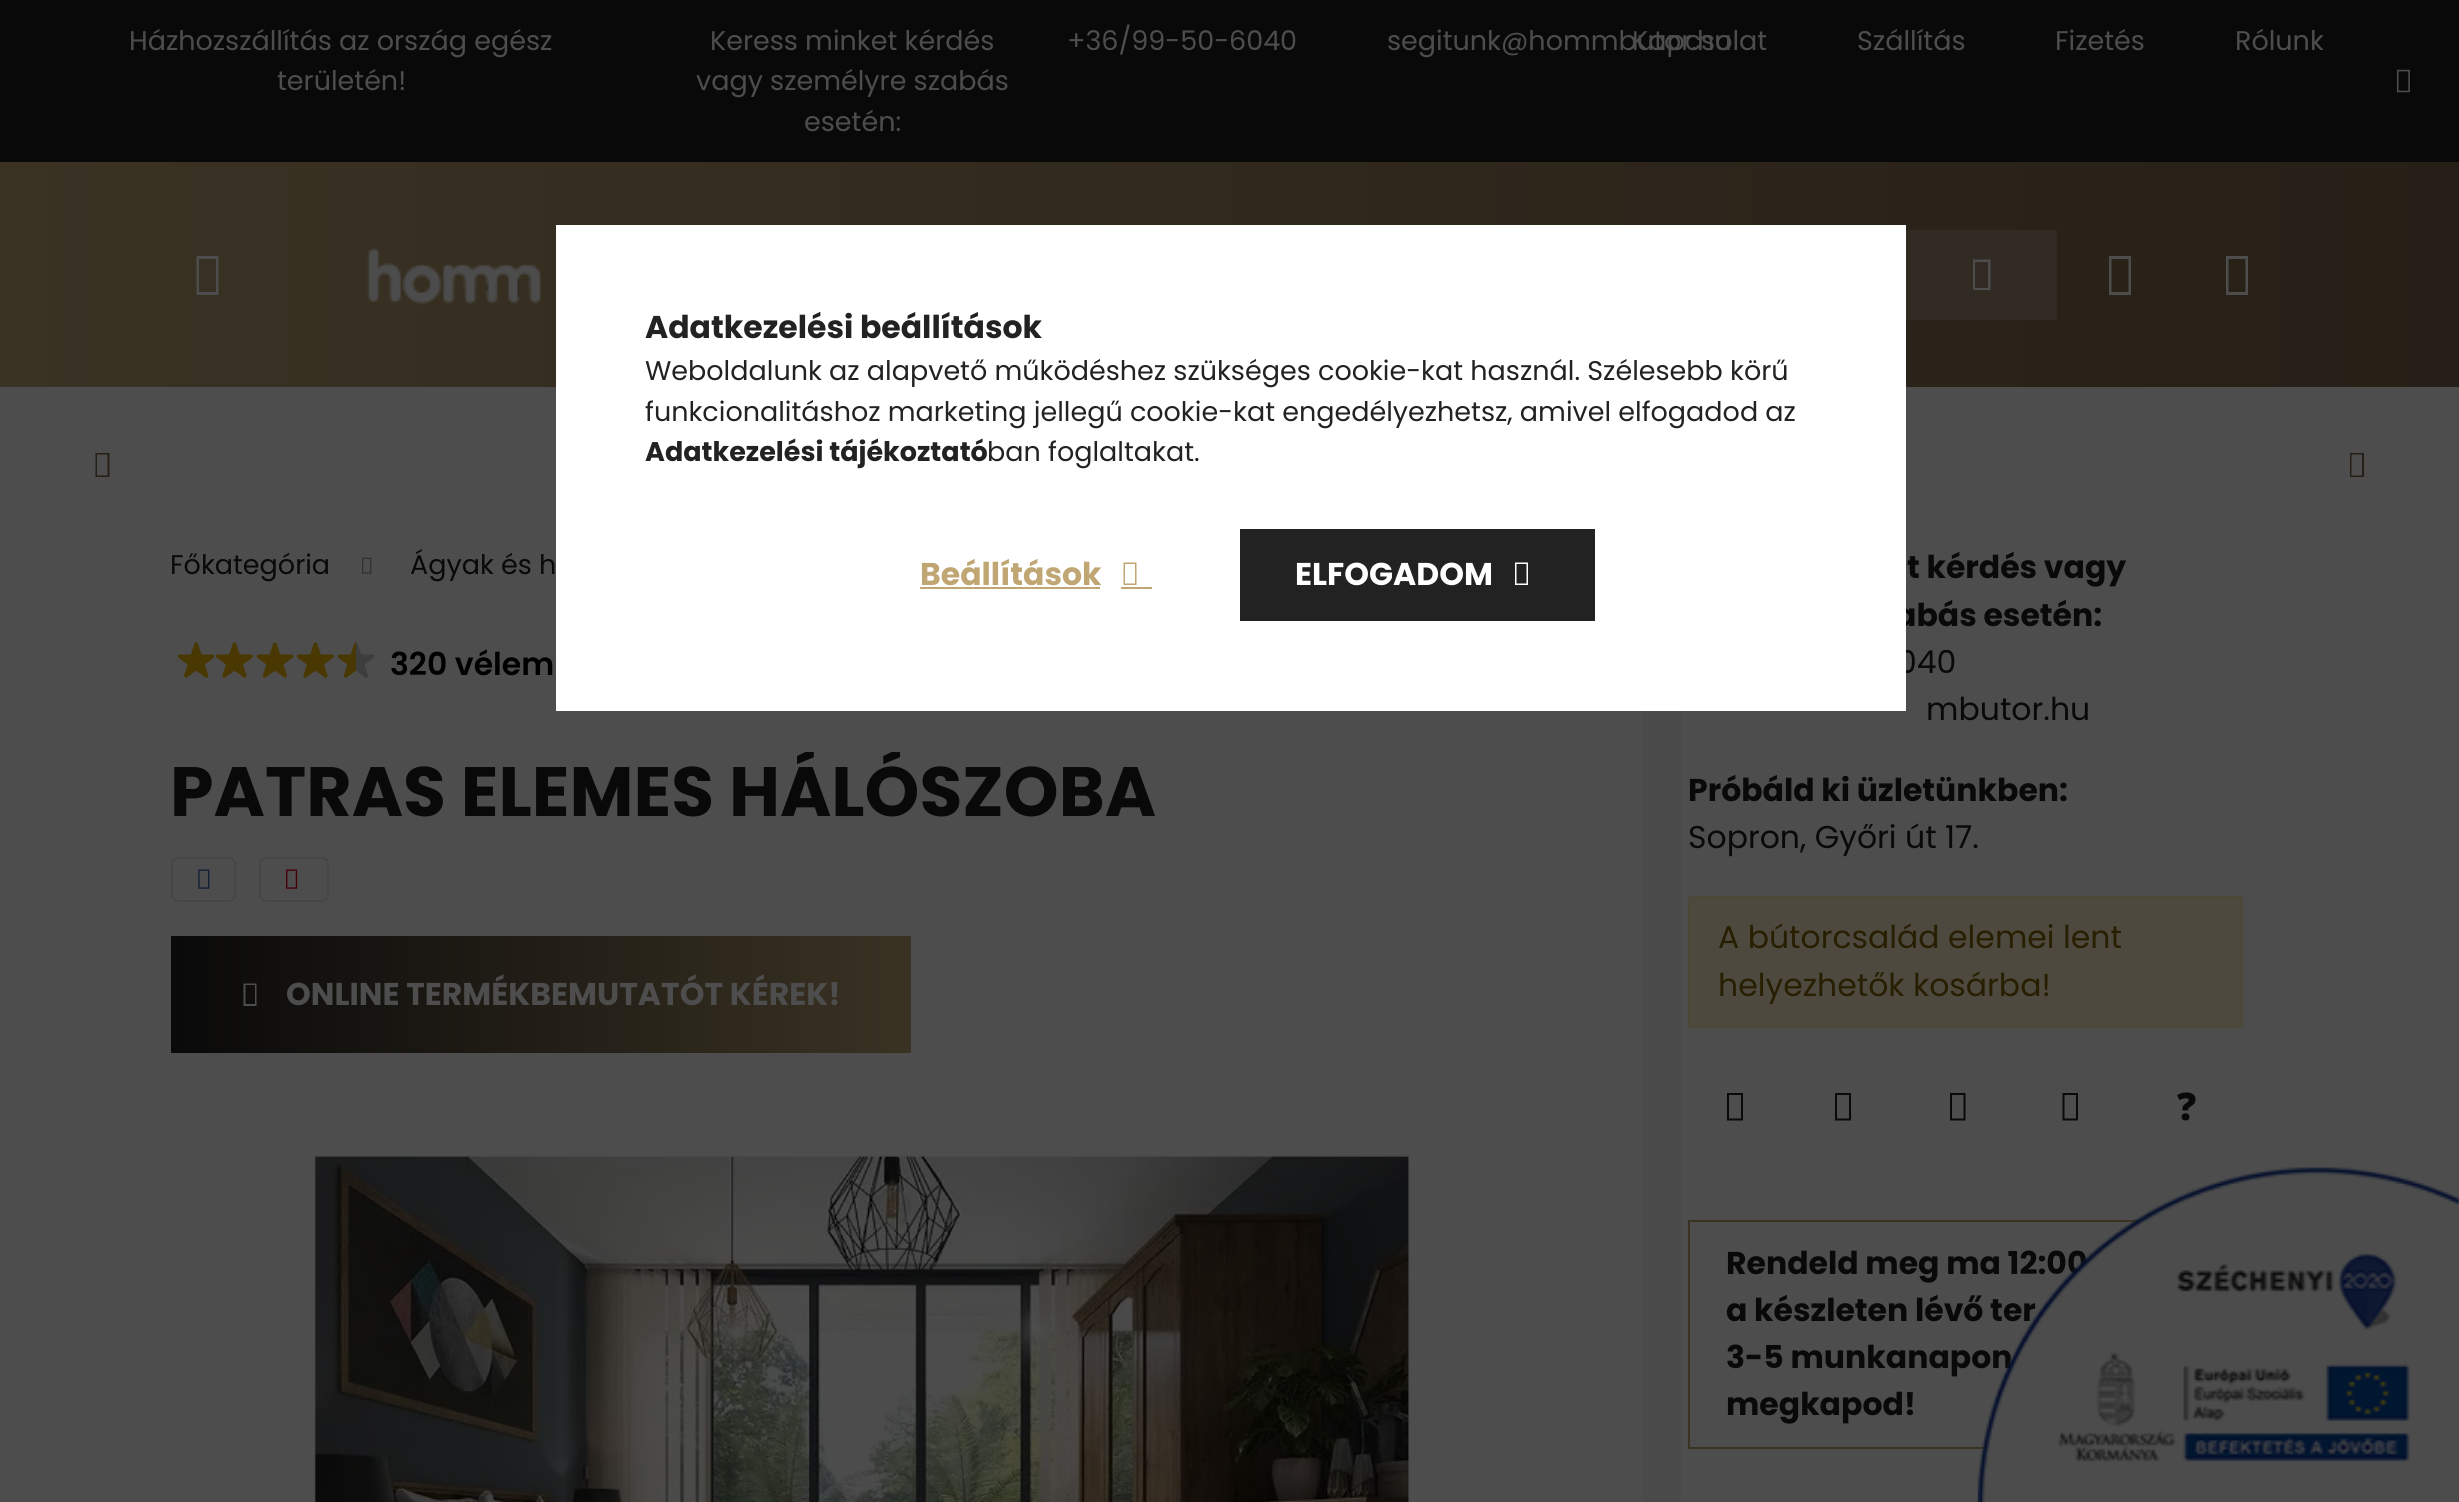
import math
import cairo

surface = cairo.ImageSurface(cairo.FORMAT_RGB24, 2459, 1502)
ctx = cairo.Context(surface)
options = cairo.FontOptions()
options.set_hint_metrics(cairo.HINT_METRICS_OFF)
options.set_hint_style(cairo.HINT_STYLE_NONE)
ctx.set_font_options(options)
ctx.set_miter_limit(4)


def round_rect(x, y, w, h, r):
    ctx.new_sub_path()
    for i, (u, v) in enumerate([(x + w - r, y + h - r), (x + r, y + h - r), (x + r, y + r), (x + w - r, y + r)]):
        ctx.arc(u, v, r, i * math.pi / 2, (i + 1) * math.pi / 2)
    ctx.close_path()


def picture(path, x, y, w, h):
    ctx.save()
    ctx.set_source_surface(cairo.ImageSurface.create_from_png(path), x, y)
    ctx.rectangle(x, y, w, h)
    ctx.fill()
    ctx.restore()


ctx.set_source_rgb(0.302, 0.302, 0.302)
ctx.paint()
ctx.set_source_rgb(0.039, 0.039, 0.039)
ctx.rectangle(0, 0, 2459, 162)
ctx.fill()
ctx.select_font_face("Poppins")
ctx.set_font_size(27)
ctx.set_source_rgb(0.302, 0.302, 0.302)
ctx.move_to(129, 50)
ctx.show_text("Házhozszállítás az ország egész")
ctx.move_to(277, 90)
ctx.show_text("területén!")
ctx.move_to(710, 50)
ctx.show_text("Keress minket kérdés")
ctx.move_to(696, 90)
ctx.show_text("vagy személyre szabás")
ctx.move_to(804, 131)
ctx.show_text("esetén:")
ctx.move_to(1067, 50)
ctx.show_text("+36/99-50-6040")
ctx.move_to(1387, 50)
ctx.show_text("segitunk@hommbutor.hu")
ctx.move_to(1632, 50)
ctx.show_text("Kapcsolat")
ctx.move_to(1857, 50)
ctx.show_text("Szállítás")
ctx.move_to(2055, 50)
ctx.show_text("Fizetés")
ctx.move_to(2235, 50)
ctx.show_text("Rólunk")
picture("img1.png", 2396, 69, 14, 24)
gradient = cairo.LinearGradient(0, 275, 2459, 274)
gradient.add_color_stop_rgba(0, 0.227, 0.196, 0.137, 1)
gradient.add_color_stop_rgba(1, 0.149, 0.122, 0.09, 1)
ctx.set_source(gradient)
ctx.rectangle(0, 162, 2459, 225)
ctx.fill()
gradient = cairo.LinearGradient(0, 275, 2459, 274)
gradient.add_color_stop_rgba(0, 0.243, 0.216, 0.169, 1)
gradient.add_color_stop_rgba(1, 0.18, 0.157, 0.133, 1)
ctx.set_source(gradient)
ctx.rectangle(1906, 230, 151, 90)
ctx.fill()
ctx.set_source_rgb(0.302, 0.302, 0.302)
ctx.new_path()
ctx.move_to(196.5, 295)
ctx.line_to(196.5, 256)
ctx.line_to(218.5, 256)
ctx.line_to(218.5, 295)
ctx.close_path()
ctx.move_to(199, 292)
ctx.line_to(216, 292)
ctx.line_to(216, 259)
ctx.line_to(199, 259)
ctx.close_path()
ctx.fill()
picture("img2.png", 366, 247, 176, 58)
ctx.new_path()
ctx.move_to(1973, 290)
ctx.line_to(1973, 259.5)
ctx.line_to(1990.5, 259.5)
ctx.line_to(1990.5, 290)
ctx.close_path()
ctx.move_to(1975, 288)
ctx.line_to(1988, 288)
ctx.line_to(1988, 262)
ctx.line_to(1975, 262)
ctx.close_path()
ctx.fill()
ctx.new_path()
ctx.move_to(2109, 295)
ctx.line_to(2109, 256)
ctx.line_to(2131, 256)
ctx.line_to(2131, 295)
ctx.close_path()
ctx.move_to(2111.5, 292)
ctx.line_to(2128.5, 292)
ctx.line_to(2128.5, 259)
ctx.line_to(2111.5, 259)
ctx.close_path()
ctx.fill()
ctx.new_path()
ctx.move_to(2226, 295)
ctx.line_to(2226, 256)
ctx.line_to(2248, 256)
ctx.line_to(2248, 295)
ctx.close_path()
ctx.move_to(2228.5, 292)
ctx.line_to(2245.5, 292)
ctx.line_to(2245.5, 259)
ctx.line_to(2228.5, 259)
ctx.close_path()
ctx.fill()
ctx.set_source_rgb(0.149, 0.122, 0.09)
ctx.new_path()
ctx.move_to(95.5, 477)
ctx.line_to(95.5, 453)
ctx.line_to(109.5, 453)
ctx.line_to(109.5, 477)
ctx.close_path()
ctx.move_to(97, 475.5)
ctx.line_to(107.5, 475.5)
ctx.line_to(107.5, 454.5)
ctx.line_to(97, 454.5)
ctx.close_path()
ctx.fill()
ctx.new_path()
ctx.move_to(2350, 477)
ctx.line_to(2350, 453)
ctx.line_to(2364, 453)
ctx.line_to(2364, 477)
ctx.close_path()
ctx.move_to(2351.5, 475.5)
ctx.line_to(2362, 475.5)
ctx.line_to(2362, 454.5)
ctx.line_to(2351.5, 454.5)
ctx.close_path()
ctx.fill()
ctx.set_source_rgb(0.039, 0.039, 0.039)
ctx.move_to(170, 574)
ctx.show_text("Főkategória")
picture("img3.png", 362, 557, 10, 17)
ctx.move_to(410, 574)
ctx.show_text("Ágyak és h")
picture("img4.png", 178, 642, 36, 36)
picture("img5.png", 216, 642, 37, 36)
picture("img6.png", 257, 642, 37, 36)
picture("img5.png", 297, 642, 37, 36)
picture("img7.png", 338, 642, 36, 36)
ctx.select_font_face("Poppins SemiBold")
ctx.set_font_size(31.5)
ctx.set_source_rgb(0, 0, 0)
ctx.move_to(390, 675)
ctx.show_text("320 vélem")
ctx.save()
ctx.rectangle(171, 752, 986, 83)
ctx.clip()
ctx.select_font_face("Poppins", cairo.FONT_SLANT_NORMAL, cairo.FONT_WEIGHT_BOLD)
ctx.set_font_size(69.75)
ctx.set_source_rgb(0.039, 0.039, 0.039)
ctx.move_to(170, 816)
ctx.show_text("PATRAS ELEMES HÁLÓSZOBA")
ctx.restore()
round_rect(172, 858, 63, 43, 6)
ctx.set_source_rgb(0.275, 0.275, 0.275)
ctx.stroke()
picture("img8.png", 198, 869, 12, 20)
round_rect(260, 858, 68, 43, 6)
ctx.stroke()
picture("img9.png", 286, 869, 12, 20)
gradient = cairo.LinearGradient(-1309, 995, 911, 994)
gradient.add_color_stop_rgba(0, 0.227, 0.196, 0.137, 1)
gradient.add_color_stop_rgba(0.33, 0.149, 0.122, 0.09, 1)
gradient.add_color_stop_rgba(0.67, 0.039, 0.039, 0.039, 1)
gradient.add_color_stop_rgba(1, 0.227, 0.196, 0.137, 1)
ctx.set_source(gradient)
ctx.rectangle(171, 936, 740, 117)
ctx.fill()
ctx.set_source_rgb(0.302, 0.302, 0.302)
ctx.new_path()
ctx.move_to(243.5, 1006)
ctx.line_to(243.5, 983.5)
ctx.line_to(256.5, 983.5)
ctx.line_to(256.5, 1006)
ctx.close_path()
ctx.move_to(245.5, 1004)
ctx.line_to(255, 1004)
ctx.line_to(255, 985)
ctx.line_to(245.5, 985)
ctx.close_path()
ctx.fill()
ctx.select_font_face("Poppins", cairo.FONT_SLANT_NORMAL, cairo.FONT_WEIGHT_BOLD)
ctx.move_to(286, 1005)
ctx.show_text("ONLINE TERMÉKBEMUTATÓT KÉREK!")
picture("img10.png", 314, 1155, 1096, 347)
gradient = cairo.LinearGradient(1643, 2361, 2288, 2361)
gradient.add_color_stop_rgba(0, 0.29, 0.29, 0.29, 1)
gradient.add_color_stop_rgba(0.35, 0.302, 0.302, 0.302, 1)
gradient.add_color_stop_rgba(1, 0.302, 0.302, 0.302, 1)
ctx.set_source(gradient)
ctx.rectangle(1643, 387, 38, 1115)
ctx.fill()
ctx.set_source_rgb(0.039, 0.039, 0.039)
ctx.move_to(1907, 578)
ctx.show_text("t kérdés vagy")
ctx.move_to(1895, 626)
ctx.show_text("abás esetén:")
ctx.select_font_face("Poppins")
ctx.move_to(1897, 673)
ctx.show_text("040")
ctx.move_to(1926, 720)
ctx.show_text("mbutor.hu")
ctx.select_font_face("Poppins", cairo.FONT_SLANT_NORMAL, cairo.FONT_WEIGHT_BOLD)
ctx.move_to(1688, 801)
ctx.show_text("Próbáld ki üzletünkben:")
ctx.select_font_face("Poppins")
ctx.move_to(1688, 848)
ctx.show_text("Sopron, Győri út 17.")
ctx.set_source_rgb(0.302, 0.286, 0.243)
ctx.rectangle(1689, 897, 553, 130)
ctx.fill_preserve()
ctx.set_source_rgb(0.302, 0.278, 0.22)
ctx.stroke()
ctx.set_source_rgb(0.157, 0.118, 0.004)
ctx.move_to(1718, 948)
ctx.show_text("A bútorcsalád elemei lent")
ctx.move_to(1718, 996)
ctx.show_text("helyezhetők kosárba!")
ctx.set_source_rgb(0.039, 0.039, 0.039)
ctx.new_path()
ctx.move_to(1727, 1120.5)
ctx.line_to(1727, 1093)
ctx.line_to(1743, 1093)
ctx.line_to(1743, 1120.5)
ctx.close_path()
ctx.move_to(1729, 1118.5)
ctx.line_to(1741, 1118.5)
ctx.line_to(1741, 1095)
ctx.line_to(1729, 1095)
ctx.close_path()
ctx.fill()
ctx.new_path()
ctx.move_to(1835, 1120.5)
ctx.line_to(1835, 1093)
ctx.line_to(1851, 1093)
ctx.line_to(1851, 1120.5)
ctx.close_path()
ctx.move_to(1837, 1118.5)
ctx.line_to(1849, 1118.5)
ctx.line_to(1849, 1095)
ctx.line_to(1837, 1095)
ctx.close_path()
ctx.fill()
ctx.new_path()
ctx.move_to(1950, 1120.5)
ctx.line_to(1950, 1093)
ctx.line_to(1965.5, 1093)
ctx.line_to(1965.5, 1120.5)
ctx.close_path()
ctx.move_to(1952, 1118.5)
ctx.line_to(1963.5, 1118.5)
ctx.line_to(1963.5, 1095)
ctx.line_to(1952, 1095)
ctx.close_path()
ctx.fill()
ctx.new_path()
ctx.move_to(2062.5, 1120.5)
ctx.line_to(2062.5, 1093)
ctx.line_to(2078, 1093)
ctx.line_to(2078, 1120.5)
ctx.close_path()
ctx.move_to(2064.5, 1118.5)
ctx.line_to(2076, 1118.5)
ctx.line_to(2076, 1095)
ctx.line_to(2064.5, 1095)
ctx.close_path()
ctx.fill()
ctx.select_font_face("Noto Sans Black")
ctx.set_font_size(38)
ctx.move_to(2177, 1120)
ctx.show_text("?")
ctx.rectangle(1689, 1221, 553, 227)
ctx.set_source_rgb(0.227, 0.196, 0.137)
ctx.stroke()
ctx.select_font_face("Poppins", cairo.FONT_SLANT_NORMAL, cairo.FONT_WEIGHT_BOLD)
ctx.set_font_size(31.5)
ctx.set_source_rgb(0.039, 0.039, 0.039)
ctx.move_to(1726, 1274)
ctx.show_text("Rendeld meg ma 12:00")
ctx.move_to(1726, 1321)
ctx.show_text("a készleten lévő ter")
ctx.move_to(1726, 1368)
ctx.show_text("3-5 munkanapon")
ctx.move_to(1726, 1415)
ctx.show_text("megkapod!")
ctx.set_source_rgb(1, 1, 1)
ctx.rectangle(556, 225, 1350, 486)
ctx.fill()
ctx.set_source_rgb(0.133, 0.133, 0.133)
ctx.move_to(645, 338)
ctx.show_text("Adatkezelési beállítások")
ctx.select_font_face("Poppins")
ctx.set_font_size(27)
ctx.move_to(645, 380)
ctx.show_text("Weboldalunk az alapvető működéshez szükséges cookie-kat használ. Szélesebb körű")
ctx.move_to(645, 421)
ctx.show_text("funkcionalitáshoz marketing jellegű cookie-kat engedélyezhetsz, amivel elfogadod az")
ctx.select_font_face("Poppins", cairo.FONT_SLANT_NORMAL, cairo.FONT_WEIGHT_BOLD)
ctx.move_to(645, 461)
ctx.show_text("Adatkezelési tájékoztató")
ctx.select_font_face("Poppins")
ctx.move_to(987, 461)
ctx.show_text("ban foglaltakat.")
ctx.select_font_face("Poppins", cairo.FONT_SLANT_NORMAL, cairo.FONT_WEIGHT_BOLD)
ctx.set_font_size(31.5)
ctx.set_source_rgb(0.753, 0.651, 0.451)
ctx.move_to(920, 585)
ctx.show_text("Beállítások")
ctx.rectangle(920, 587, 180, 2)
ctx.fill()
ctx.new_path()
ctx.move_to(1123.5, 585)
ctx.line_to(1123.5, 562.5)
ctx.line_to(1136.5, 562.5)
ctx.line_to(1136.5, 585)
ctx.close_path()
ctx.move_to(1125, 583.5)
ctx.line_to(1135, 583.5)
ctx.line_to(1135, 564)
ctx.line_to(1125, 564)
ctx.close_path()
ctx.fill()
ctx.rectangle(1121, 587, 31, 2)
ctx.fill()
gradient = cairo.LinearGradient(529, 575, 1595, 575)
gradient.add_color_stop_rgba(0, 0.753, 0.651, 0.451, 1)
gradient.add_color_stop_rgba(0.33, 0.502, 0.404, 0.302, 1)
gradient.add_color_stop_rgba(0.67, 0.133, 0.133, 0.133, 1)
gradient.add_color_stop_rgba(1, 0.133, 0.133, 0.133, 1)
ctx.set_source(gradient)
ctx.rectangle(1240, 529, 355, 92)
ctx.fill()
ctx.set_source_rgb(1, 1, 1)
ctx.move_to(1295, 585)
ctx.show_text("ELFOGADOM")
ctx.new_path()
ctx.move_to(1515, 585)
ctx.line_to(1515, 562.5)
ctx.line_to(1528, 562.5)
ctx.line_to(1528, 585)
ctx.close_path()
ctx.move_to(1516.5, 583.5)
ctx.line_to(1526.5, 583.5)
ctx.line_to(1526.5, 564)
ctx.line_to(1516.5, 564)
ctx.close_path()
ctx.fill()
picture("img11.png", 1977, 1167, 482, 335)
surface.write_to_png("page.png")
